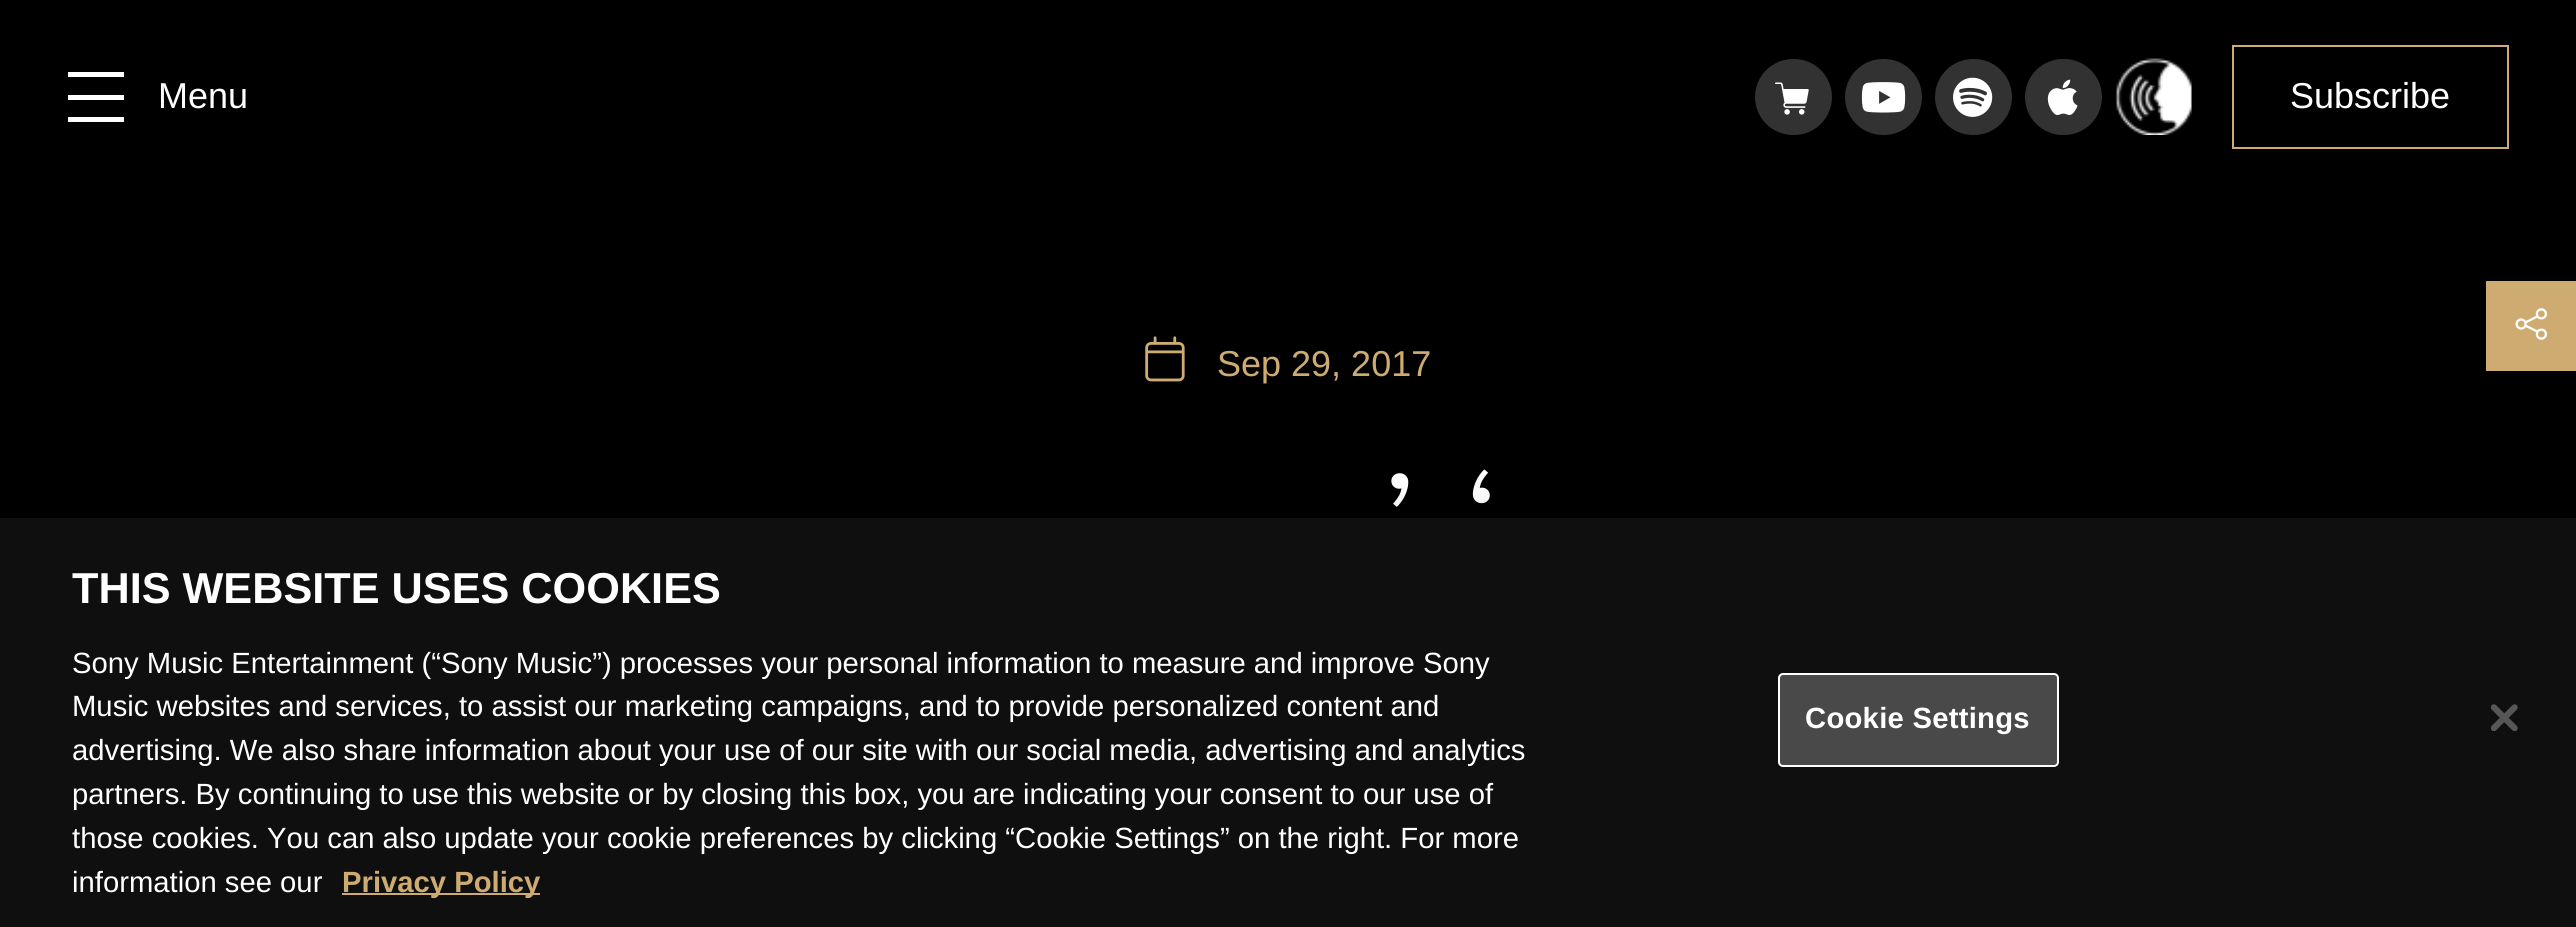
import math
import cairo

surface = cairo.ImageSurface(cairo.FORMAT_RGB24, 2576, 927)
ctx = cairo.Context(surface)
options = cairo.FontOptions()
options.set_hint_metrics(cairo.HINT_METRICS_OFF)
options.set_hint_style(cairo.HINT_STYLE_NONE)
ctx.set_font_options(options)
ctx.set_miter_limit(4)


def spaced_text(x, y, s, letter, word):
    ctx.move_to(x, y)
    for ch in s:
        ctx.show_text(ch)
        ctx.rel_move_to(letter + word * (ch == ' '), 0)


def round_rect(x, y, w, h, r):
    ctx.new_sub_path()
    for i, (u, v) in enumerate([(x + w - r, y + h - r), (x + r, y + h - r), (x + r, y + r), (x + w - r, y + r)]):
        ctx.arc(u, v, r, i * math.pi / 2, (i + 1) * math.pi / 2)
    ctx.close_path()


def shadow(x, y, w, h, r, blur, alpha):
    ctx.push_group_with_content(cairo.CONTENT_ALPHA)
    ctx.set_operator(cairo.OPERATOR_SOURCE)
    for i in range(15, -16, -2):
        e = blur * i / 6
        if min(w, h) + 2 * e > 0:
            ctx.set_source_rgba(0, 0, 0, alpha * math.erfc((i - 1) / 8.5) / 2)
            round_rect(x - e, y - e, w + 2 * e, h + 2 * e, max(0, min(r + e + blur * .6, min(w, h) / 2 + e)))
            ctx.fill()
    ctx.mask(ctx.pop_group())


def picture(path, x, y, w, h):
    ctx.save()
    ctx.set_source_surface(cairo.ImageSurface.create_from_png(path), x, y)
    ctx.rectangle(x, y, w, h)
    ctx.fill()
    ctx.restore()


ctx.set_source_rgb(0, 0, 0)
ctx.paint()
ctx.set_source_rgb(1, 1, 1)
ctx.rectangle(68, 117, 56, 5)
ctx.fill()
ctx.rectangle(68, 72, 56, 5)
ctx.fill()
ctx.rectangle(68, 95, 56, 5)
ctx.fill()
ctx.select_font_face("Liberation Sans")
ctx.set_font_size(36)
ctx.move_to(158, 108)
ctx.show_text("Menu")
ctx.set_source_rgb(0.196, 0.196, 0.196)
round_rect(1755, 59, 77, 76, 38)
ctx.fill()
picture("img1.png", 1775, 82, 34, 33)
round_rect(1845, 59, 77, 76, 38)
ctx.fill()
picture("img2.png", 1861, 82, 45, 31)
round_rect(1935, 59, 77, 76, 38)
ctx.fill()
picture("img3.png", 1953, 77, 40, 40)
round_rect(2025, 59, 77, 76, 38)
ctx.fill()
picture("img4.png", 2047, 79, 31, 36)
picture("img5.png", 2115, 58, 77, 77)
ctx.rectangle(2233, 46, 275, 102)
ctx.set_source_rgb(0.808, 0.675, 0.443)
ctx.stroke()
ctx.set_source_rgb(1, 1, 1)
ctx.move_to(2290, 108)
ctx.show_text("Subscribe")
ctx.set_source_rgb(0.808, 0.675, 0.443)
ctx.rectangle(2486, 281, 90, 90)
ctx.fill()
picture("img6.png", 2515, 308, 32, 32)
picture("img7.png", 1145, 336, 40, 46)
ctx.move_to(1217, 376)
ctx.show_text("Sep 29, 2017")
ctx.select_font_face("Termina")
ctx.set_font_size(140)
ctx.set_source_rgb(1, 1, 1)
ctx.move_to(1381, 574)
ctx.show_text("’ ‘")
ctx.set_source_rgb(0, 0, 0)
shadow(0, 518, 2576, 409, 0, 20, 0.2)
ctx.set_source_rgb(0.059, 0.059, 0.059)
ctx.rectangle(0, 518, 2576, 409)
ctx.fill()
ctx.select_font_face("Liberation Sans", cairo.FONT_SLANT_NORMAL, cairo.FONT_WEIGHT_BOLD)
ctx.set_font_size(43.25)
ctx.set_source_rgb(1, 1, 1)
ctx.move_to(72, 603)
ctx.show_text("THIS WEBSITE USES COOKIES")
ctx.select_font_face("Liberation Sans")
ctx.set_font_size(29.25)
ctx.move_to(72, 673)
ctx.show_text("Sony Music Entertainment (“Sony Music”) processes your personal information to measure and improve Sony")
ctx.move_to(72, 716)
ctx.show_text("Music websites and services, to assist our marketing campaigns, and to provide personalized content and")
ctx.move_to(72, 760)
ctx.show_text("advertising. We also share information about your use of our site with our social media, advertising and analytics")
ctx.move_to(72, 804)
ctx.show_text("partners. By continuing to use this website or by closing this box, you are indicating your consent to our use of")
ctx.move_to(72, 848)
ctx.show_text("those cookies. You can also update your cookie preferences by clicking “Cookie Settings” on the right. For more")
ctx.move_to(72, 892)
ctx.show_text("information see our")
ctx.set_source_rgb(0.808, 0.671, 0.443)
ctx.rectangle(342, 893, 198, 2)
ctx.fill()
ctx.select_font_face("Liberation Sans", cairo.FONT_SLANT_NORMAL, cairo.FONT_WEIGHT_BOLD)
ctx.set_source_rgb(0.808, 0.675, 0.443)
ctx.move_to(342, 892)
ctx.show_text("Privacy Policy")
ctx.set_source_rgb(0.286, 0.286, 0.286)
round_rect(1779, 674, 279, 92, 4)
ctx.fill_preserve()
ctx.set_source_rgb(1, 1, 1)
ctx.stroke()
spaced_text(1805, 728, "Cookie Settings", 0.25, 0)
picture("img8.png", 2491, 704, 27, 27)
surface.write_to_png("page.png")
